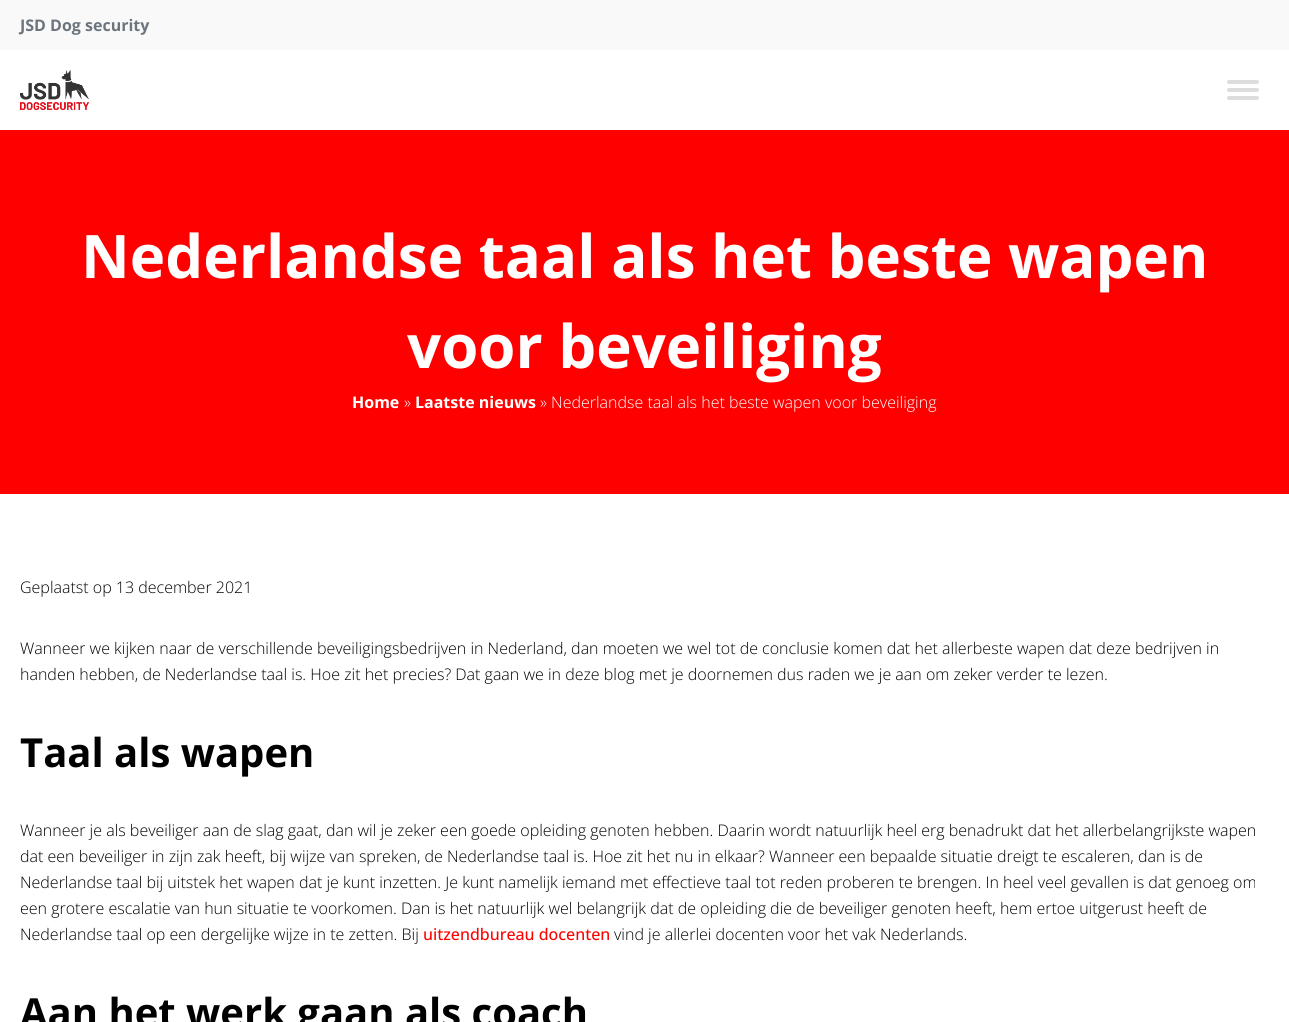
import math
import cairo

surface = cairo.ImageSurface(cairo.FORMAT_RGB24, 1289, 1022)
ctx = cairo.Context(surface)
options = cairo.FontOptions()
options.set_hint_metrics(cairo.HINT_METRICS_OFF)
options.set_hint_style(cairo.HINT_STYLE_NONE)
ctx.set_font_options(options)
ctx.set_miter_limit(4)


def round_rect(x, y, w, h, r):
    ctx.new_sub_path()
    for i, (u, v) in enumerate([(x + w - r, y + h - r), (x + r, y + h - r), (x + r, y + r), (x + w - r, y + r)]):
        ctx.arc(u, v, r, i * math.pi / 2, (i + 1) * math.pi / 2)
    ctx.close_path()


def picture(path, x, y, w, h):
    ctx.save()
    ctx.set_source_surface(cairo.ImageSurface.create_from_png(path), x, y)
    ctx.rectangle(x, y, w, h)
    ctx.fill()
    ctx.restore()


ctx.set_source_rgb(1, 1, 1)
ctx.paint()
ctx.set_source_rgb(0.973, 0.973, 0.973)
ctx.rectangle(0, 0, 1289, 50)
ctx.fill()
ctx.select_font_face("Open Sans", cairo.FONT_SLANT_NORMAL, cairo.FONT_WEIGHT_BOLD)
ctx.set_font_size(16)
ctx.set_source_rgb(0.424, 0.459, 0.49)
ctx.move_to(20, 31)
ctx.show_text("JSD Dog security")
picture("img1.png", 20, 70, 69, 40)
ctx.set_source_rgb(0.867, 0.867, 0.867)
round_rect(1227, 80, 32, 4, 2)
ctx.fill()
round_rect(1227, 88, 32, 4, 2)
ctx.fill()
round_rect(1227, 96, 32, 4, 2)
ctx.fill()
ctx.set_source_rgb(1, 0, 0)
ctx.rectangle(0, 130, 1289, 364)
ctx.fill()
ctx.set_font_size(60)
ctx.set_source_rgb(1, 1, 1)
ctx.move_to(81, 278)
ctx.show_text("Nederlandse taal als het beste wapen")
ctx.move_to(407, 368)
ctx.show_text("voor beveiliging")
ctx.set_font_size(16)
ctx.move_to(352, 408)
ctx.show_text("Home")
ctx.select_font_face("Open Sans Light")
ctx.move_to(404, 408)
ctx.show_text("»")
ctx.select_font_face("Open Sans", cairo.FONT_SLANT_NORMAL, cairo.FONT_WEIGHT_BOLD)
ctx.move_to(415, 408)
ctx.show_text("Laatste nieuws")
ctx.select_font_face("Open Sans Light")
ctx.move_to(540, 408)
ctx.show_text("» Nederlandse taal als het beste wapen voor beveiliging")
ctx.set_source_rgb(0, 0, 0)
ctx.move_to(20, 593)
ctx.show_text("Geplaatst op 13 december 2021")
ctx.move_to(20, 654)
ctx.show_text("Wanneer we kijken naar de verschillende beveiligingsbedrijven in Nederland, dan moeten we wel tot de conclusie komen dat het allerbeste wapen dat deze bedrijven in")
ctx.move_to(20, 680)
ctx.show_text("handen hebben, de Nederlandse taal is. Hoe zit het precies? Dat gaan we in deze blog met je doornemen dus raden we je aan om zeker verder te lezen.")
ctx.select_font_face("Open Sans", cairo.FONT_SLANT_NORMAL, cairo.FONT_WEIGHT_BOLD)
ctx.set_font_size(40)
ctx.move_to(20, 767)
ctx.show_text("Taal als wapen")
ctx.select_font_face("Open Sans Light")
ctx.set_font_size(16)
ctx.move_to(20, 836)
ctx.show_text("Wanneer je als beveiliger aan de slag gaat, dan wil je zeker een goede opleiding genoten hebben. Daarin wordt natuurlijk heel erg benadrukt dat het allerbelangrijkste wapen")
ctx.move_to(20, 862)
ctx.show_text("dat een beveiliger in zijn zak heeft, bij wijze van spreken, de Nederlandse taal is. Hoe zit het nu in elkaar? Wanneer een bepaalde situatie dreigt te escaleren, dan is de")
ctx.move_to(20, 888)
ctx.show_text("Nederlandse taal bij uitstek het wapen dat je kunt inzetten. Je kunt namelijk iemand met effectieve taal tot reden proberen te brengen. In heel veel gevallen is dat genoeg om")
ctx.move_to(20, 914)
ctx.show_text("een grotere escalatie van hun situatie te voorkomen. Dan is het natuurlijk wel belangrijk dat de opleiding die de beveiliger genoten heeft, hem ertoe uitgerust heeft de")
ctx.move_to(20, 940)
ctx.show_text("Nederlandse taal op een dergelijke wijze in te zetten. Bij")
ctx.select_font_face("Open Sans Medium")
ctx.set_source_rgb(1, 0, 0)
ctx.move_to(423, 940)
ctx.show_text("uitzendbureau docenten")
ctx.select_font_face("Open Sans Light")
ctx.set_source_rgb(0, 0, 0)
ctx.move_to(614, 940)
ctx.show_text("vind je allerlei docenten voor het vak Nederlands.")
ctx.select_font_face("Open Sans", cairo.FONT_SLANT_NORMAL, cairo.FONT_WEIGHT_BOLD)
ctx.set_font_size(40)
ctx.move_to(20, 1027)
ctx.show_text("Aan het werk gaan als coach")
surface.write_to_png("page.png")
